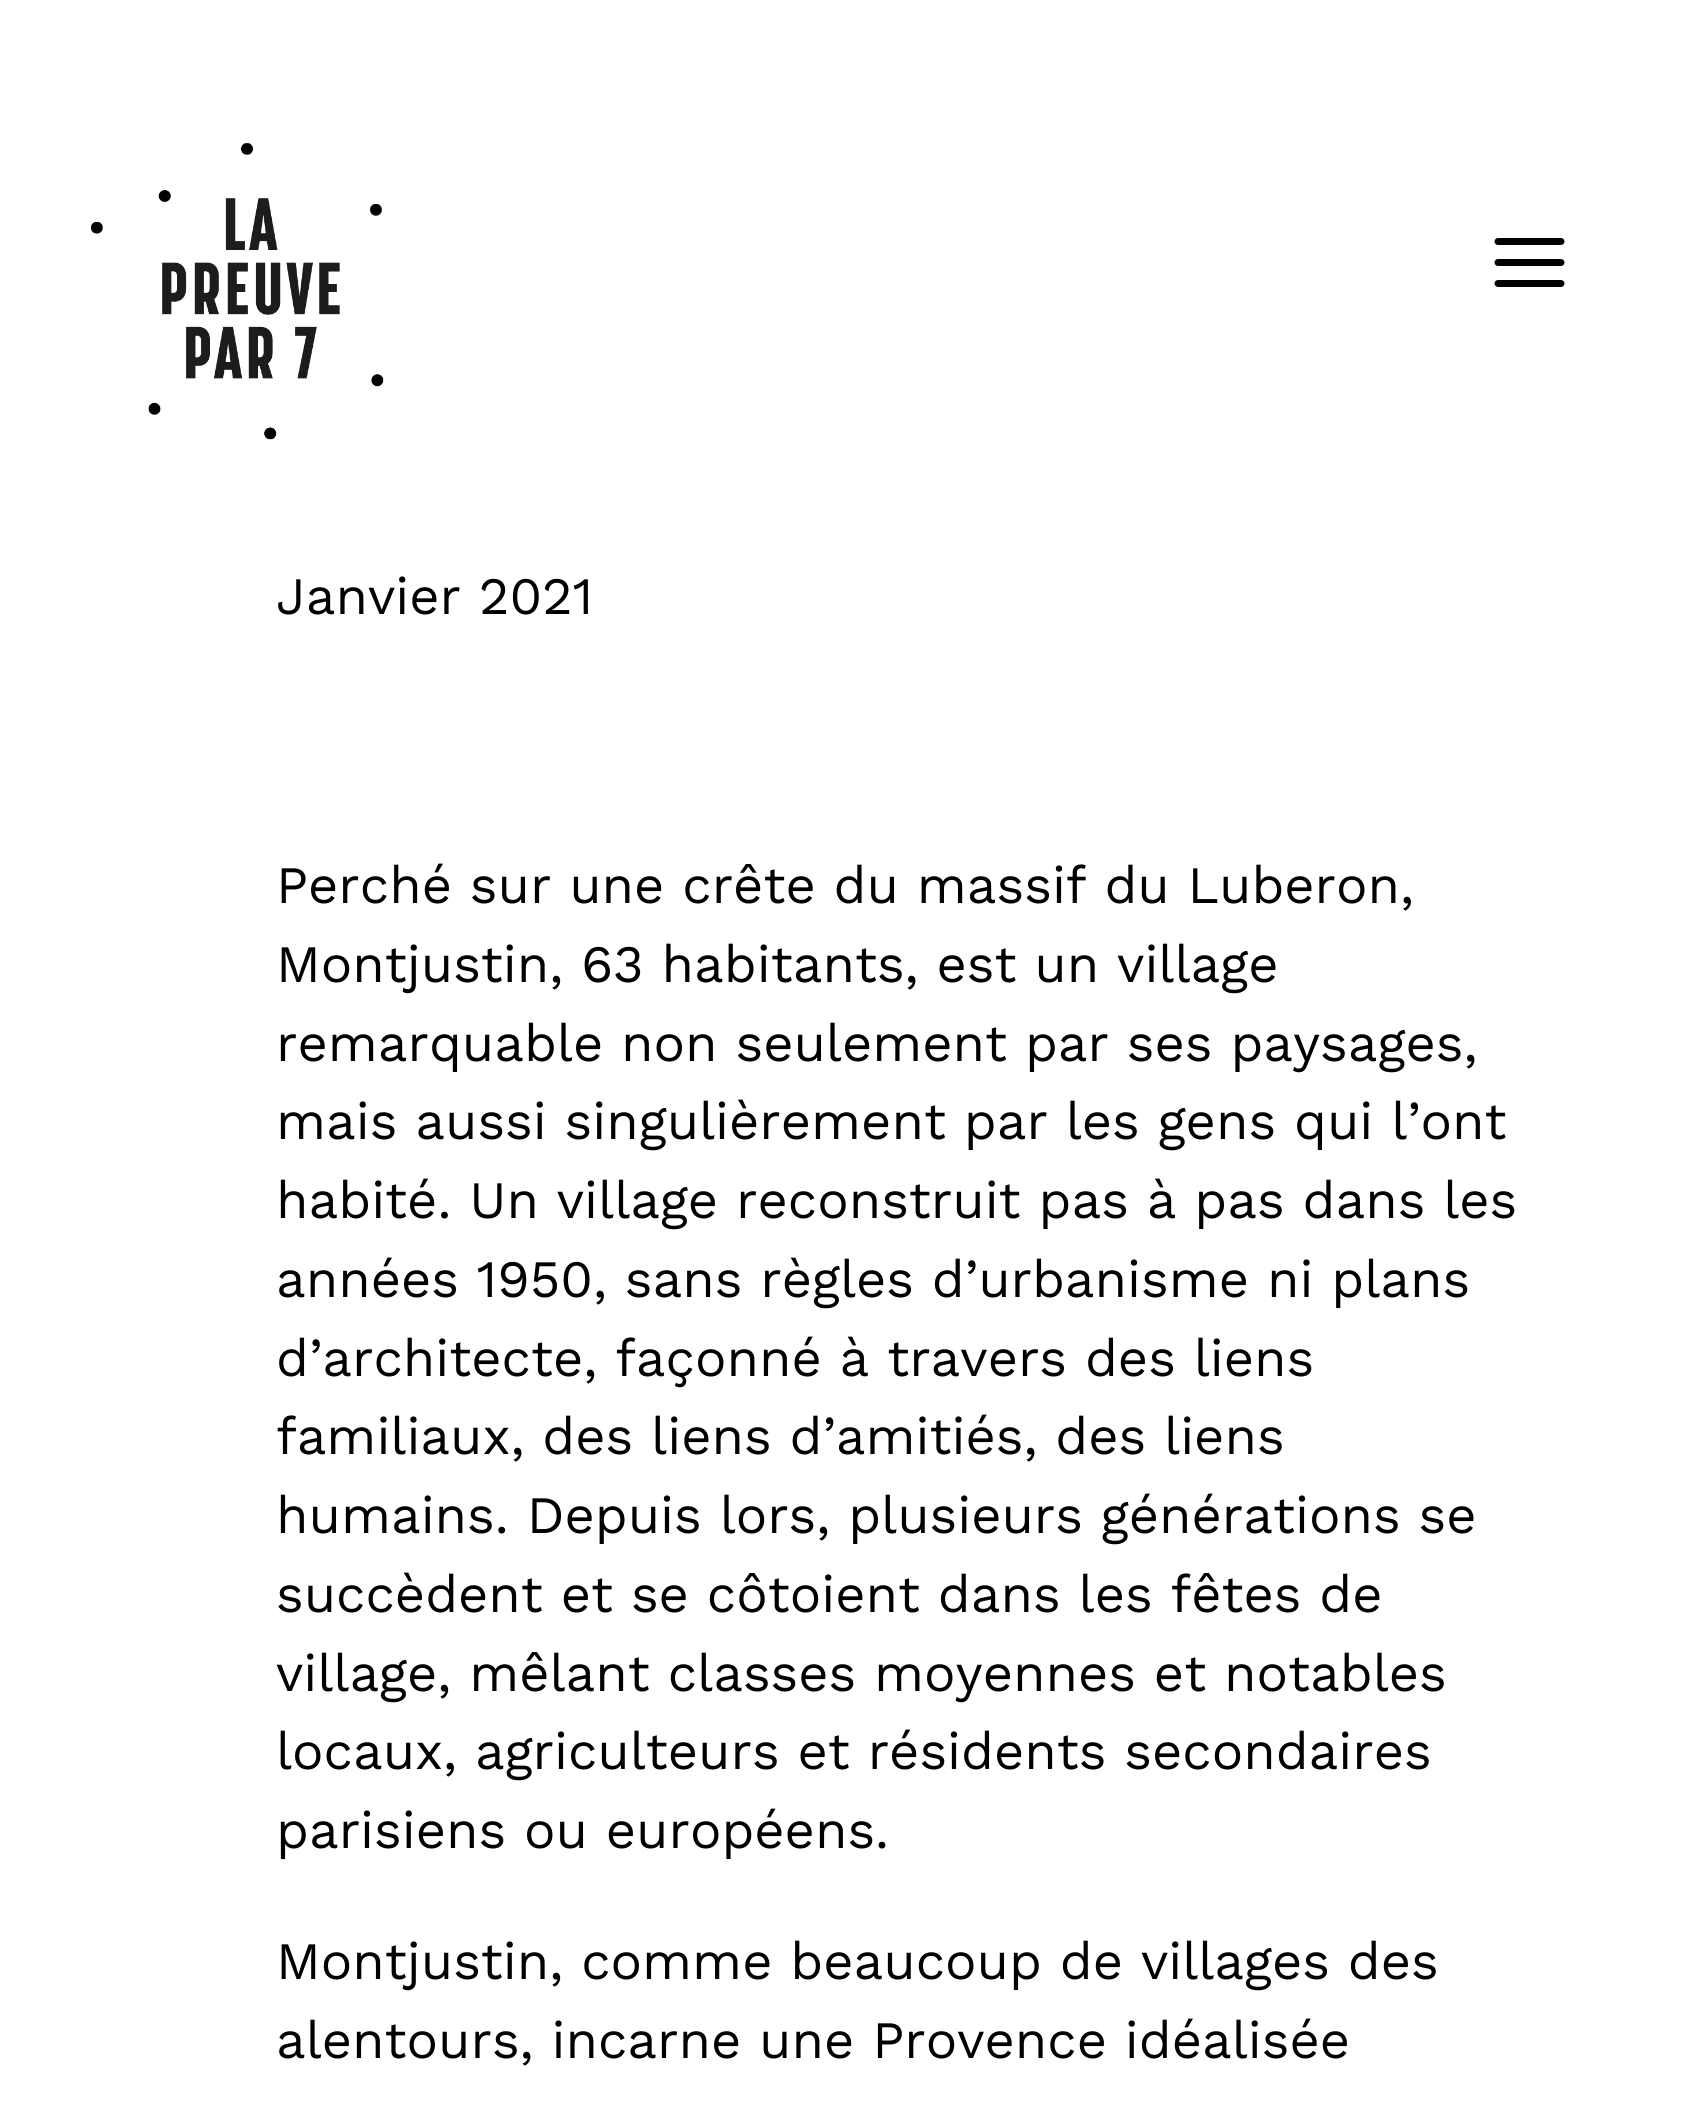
import math
import cairo

surface = cairo.ImageSurface(cairo.FORMAT_RGB24, 1689, 2109)
ctx = cairo.Context(surface)
options = cairo.FontOptions()
options.set_hint_metrics(cairo.HINT_METRICS_OFF)
options.set_hint_style(cairo.HINT_STYLE_NONE)
ctx.set_font_options(options)
ctx.set_miter_limit(4)


def picture(path, x, y, w, h):
    ctx.save()
    ctx.set_source_surface(cairo.ImageSurface.create_from_png(path), x, y)
    ctx.rectangle(x, y, w, h)
    ctx.fill()
    ctx.restore()


ctx.set_source_rgb(1, 1, 1)
ctx.paint()
picture("img1.png", 91, 143, 293, 297)
picture("img2.png", 1494, 238, 71, 49)
ctx.select_font_face("Work Sans")
ctx.set_font_size(52.5)
ctx.set_source_rgb(0, 0, 0)
ctx.move_to(276, 614)
ctx.show_text("Janvier 2021")
ctx.move_to(276, 903)
ctx.show_text("Perché sur une crête du massif du Luberon,")
ctx.move_to(276, 982)
ctx.show_text("Montjustin, 63 habitants, est un village")
ctx.move_to(276, 1061)
ctx.show_text("remarquable non seulement par ses paysages,")
ctx.move_to(276, 1139)
ctx.show_text("mais aussi singulièrement par les gens qui l’ont")
ctx.move_to(276, 1218)
ctx.show_text("habité. Un village reconstruit pas à pas dans les")
ctx.move_to(276, 1297)
ctx.show_text("années 1950, sans règles d’urbanisme ni plans")
ctx.move_to(276, 1376)
ctx.show_text("d’architecte, façonné à travers des liens")
ctx.move_to(276, 1454)
ctx.show_text("familiaux, des liens d’amitiés, des liens")
ctx.move_to(276, 1533)
ctx.show_text("humains. Depuis lors, plusieurs générations se")
ctx.move_to(276, 1612)
ctx.show_text("succèdent et se côtoient dans les fêtes de")
ctx.move_to(276, 1691)
ctx.show_text("village, mêlant classes moyennes et notables")
ctx.move_to(276, 1769)
ctx.show_text("locaux, agriculteurs et résidents secondaires")
ctx.move_to(276, 1848)
ctx.show_text("parisiens ou européens.")
ctx.move_to(276, 1979)
ctx.show_text("Montjustin, comme beaucoup de villages des")
ctx.move_to(276, 2058)
ctx.show_text("alentours, incarne une Provence idéalisée")
surface.write_to_png("page.png")
